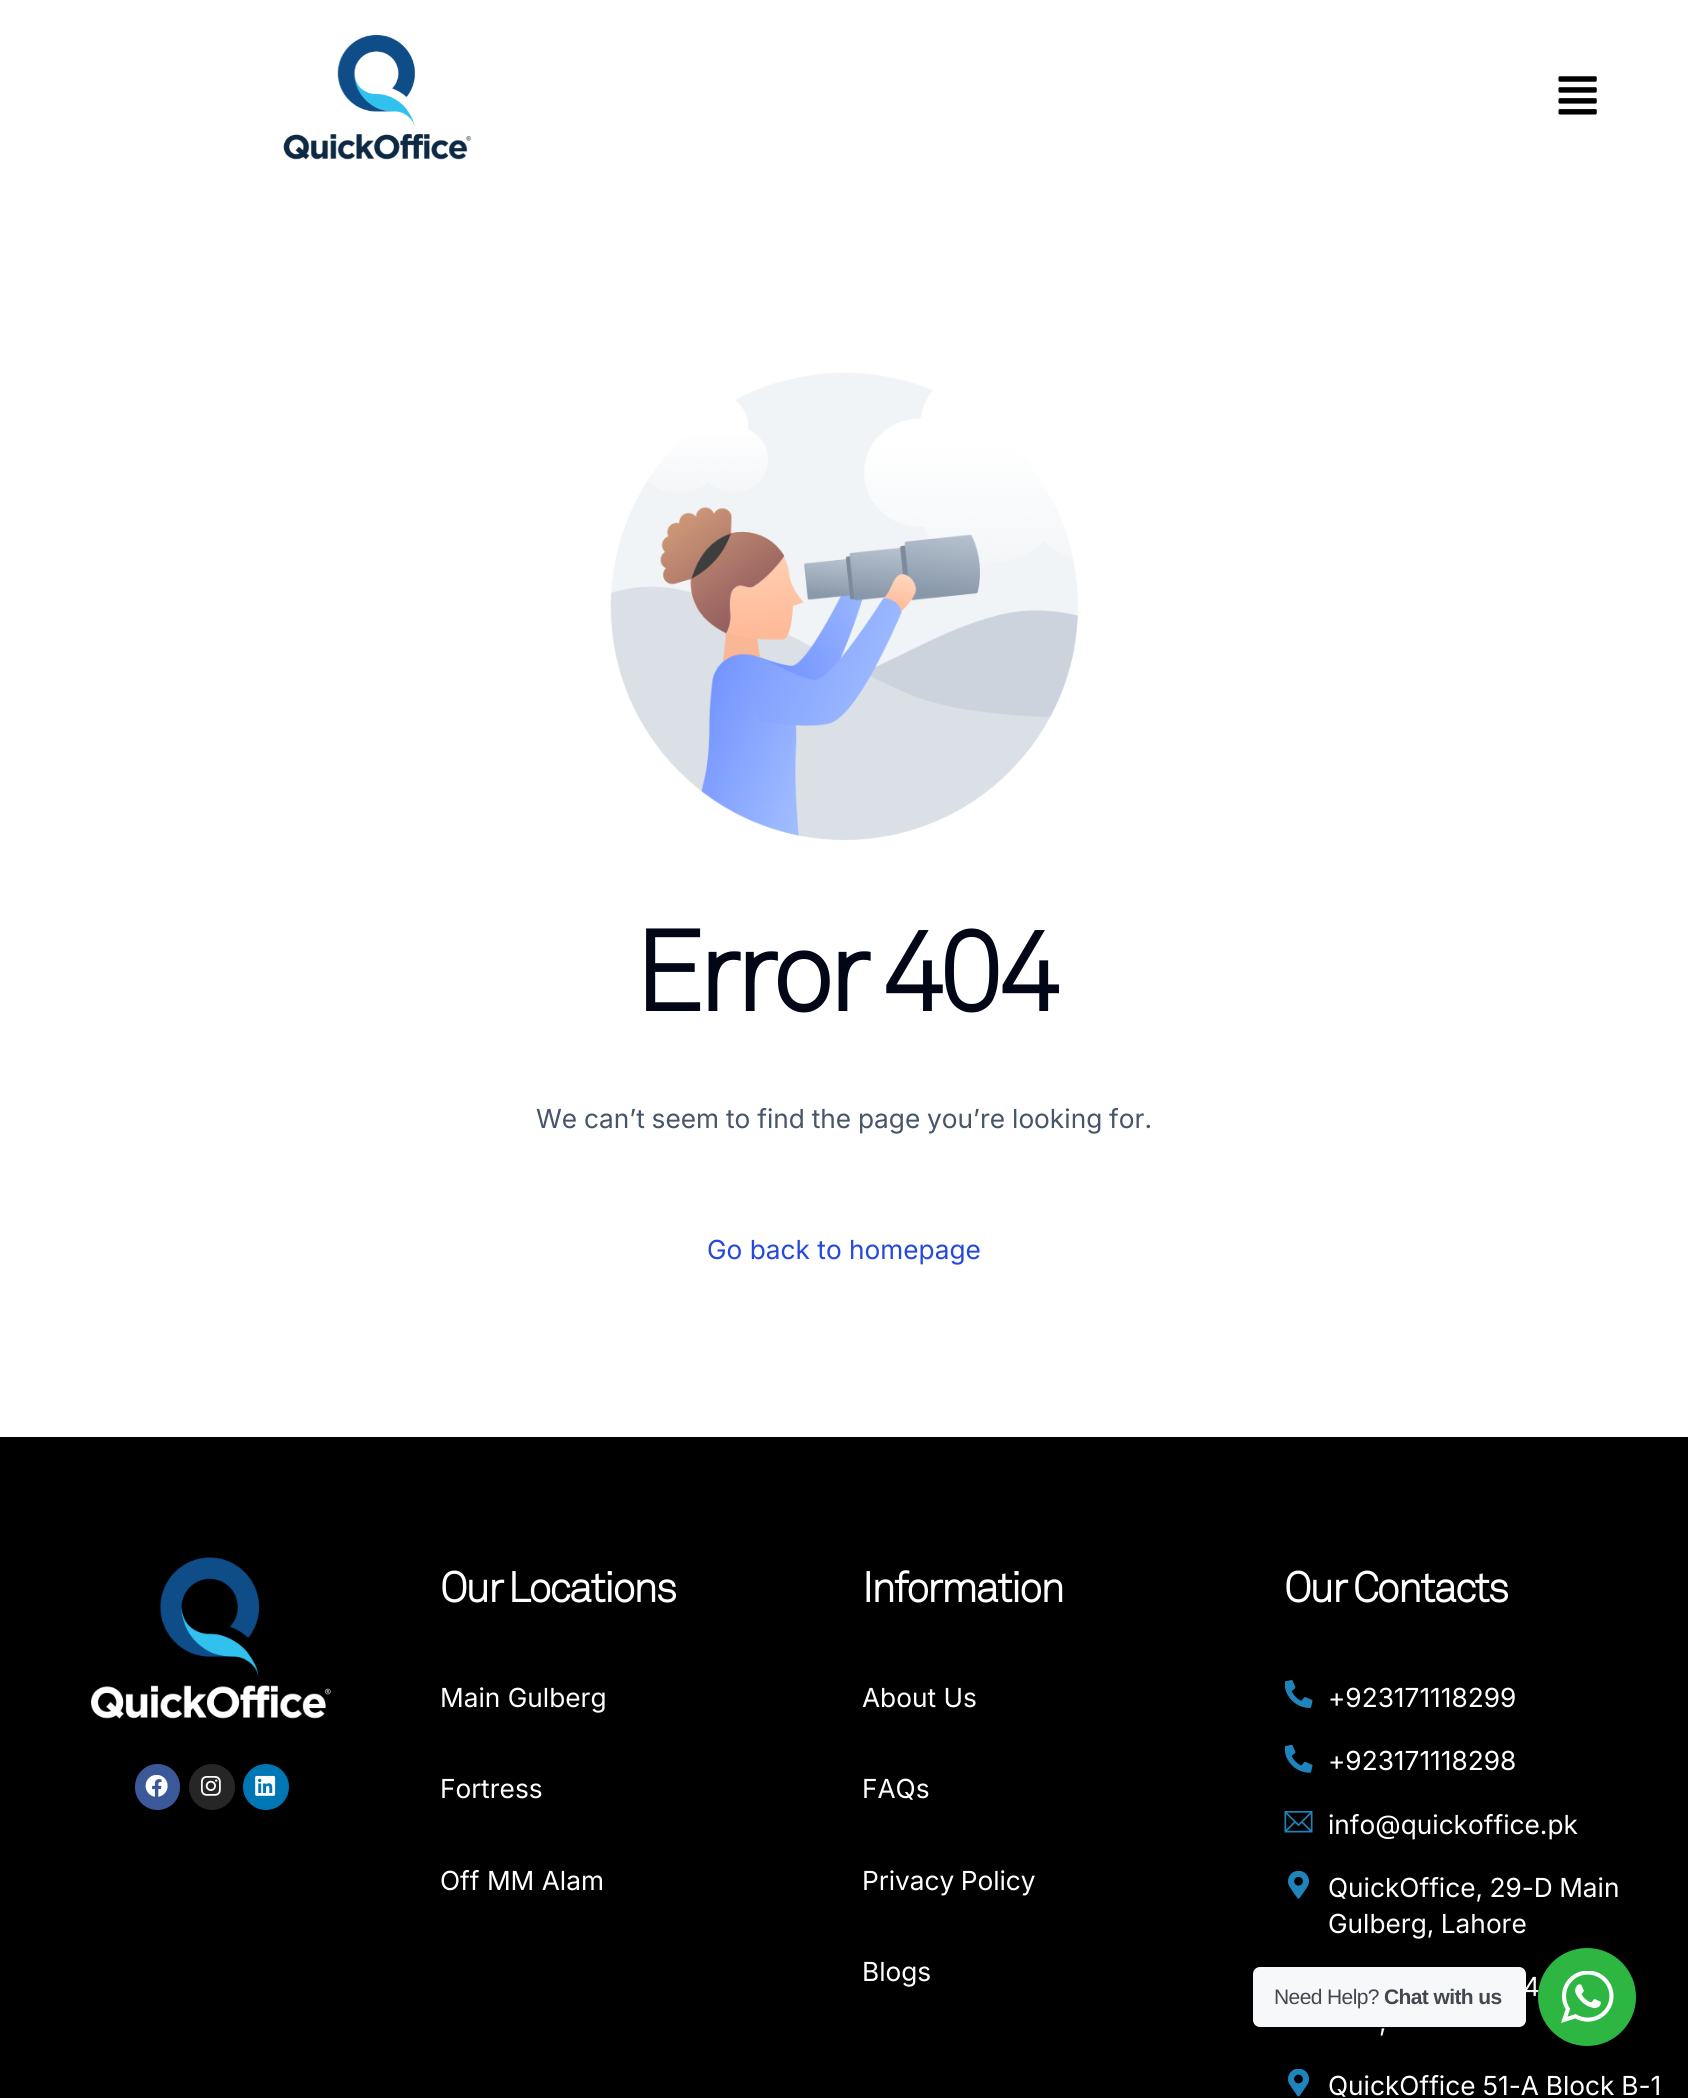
import math
import cairo

surface = cairo.ImageSurface(cairo.FORMAT_RGB24, 1688, 2098)
ctx = cairo.Context(surface)
options = cairo.FontOptions()
options.set_hint_metrics(cairo.HINT_METRICS_OFF)
options.set_hint_style(cairo.HINT_STYLE_NONE)
ctx.set_font_options(options)
ctx.set_miter_limit(4)


def spaced_text(x, y, s, letter, word):
    ctx.move_to(x, y)
    for ch in s:
        ctx.show_text(ch)
        ctx.rel_move_to(letter + word * (ch == ' '), 0)


def round_rect(x, y, w, h, r):
    ctx.new_sub_path()
    for i, (u, v) in enumerate([(x + w - r, y + h - r), (x + r, y + h - r), (x + r, y + r), (x + w - r, y + r)]):
        ctx.arc(u, v, r, i * math.pi / 2, (i + 1) * math.pi / 2)
    ctx.close_path()


def shadow(x, y, w, h, r, blur, alpha):
    ctx.push_group_with_content(cairo.CONTENT_ALPHA)
    ctx.set_operator(cairo.OPERATOR_SOURCE)
    for i in range(15, -16, -2):
        e = blur * i / 6
        if min(w, h) + 2 * e > 0:
            ctx.set_source_rgba(0, 0, 0, alpha * math.erfc((i - 1) / 8.5) / 2)
            round_rect(x - e, y - e, w + 2 * e, h + 2 * e, max(0, min(r + e + blur * .6, min(w, h) / 2 + e)))
            ctx.fill()
    ctx.mask(ctx.pop_group())


def picture(path, x, y, w, h):
    ctx.save()
    ctx.set_source_surface(cairo.ImageSurface.create_from_png(path), x, y)
    ctx.rectangle(x, y, w, h)
    ctx.fill()
    ctx.restore()


ctx.set_source_rgb(1, 1, 1)
ctx.paint()
picture("img1.png", 283, 35, 188, 125)
picture("img2.png", 1558, 76, 39, 39)
picture("img3.png", 610, 372, 468, 468)
ctx.select_font_face("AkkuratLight", cairo.FONT_SLANT_NORMAL, cairo.FONT_WEIGHT_BOLD)
ctx.set_font_size(112)
ctx.set_source_rgb(0.008, 0.024, 0.09)
spaced_text(634, 1011, "Error 404", -5.5, -3)
ctx.select_font_face("Inter")
ctx.set_font_size(26.25)
ctx.set_source_rgb(0.278, 0.333, 0.412)
spaced_text(536, 1128, "We can’t seem to find the page you’re looking for.", 0, -0.5)
ctx.set_source_rgb(0.145, 0.282, 0.871)
ctx.move_to(707, 1259)
ctx.show_text("Go back to homepage")
ctx.set_source_rgb(0, 0, 0)
ctx.rectangle(0, 1437, 1688, 661)
ctx.fill()
picture("img4.png", 91, 1557, 240, 162)
ctx.set_source_rgb(0.231, 0.349, 0.596)
round_rect(135, 1764, 45, 46, 22.5)
ctx.fill()
picture("img5.png", 145, 1775, 23, 22)
ctx.set_source_rgb(0.149, 0.149, 0.149)
ctx.arc(212, 1787, 23, 0, 2 * math.pi)
ctx.fill()
picture("img6.png", 201, 1776, 20, 20)
ctx.set_source_rgb(0, 0.467, 0.71)
ctx.arc(266, 1787, 23, 0, 2 * math.pi)
ctx.fill()
picture("img7.png", 255, 1775, 21, 21)
ctx.select_font_face("AkkuratLight", cairo.FONT_SLANT_NORMAL, cairo.FONT_WEIGHT_BOLD)
ctx.set_font_size(42)
ctx.set_source_rgb(1, 1, 1)
spaced_text(440, 1602, "Our Locations", -2.1, -1)
ctx.select_font_face("Inter")
ctx.set_font_size(26.25)
ctx.move_to(440, 1707)
ctx.show_text("Main Gulberg")
ctx.move_to(440, 1798)
ctx.show_text("Fortress")
ctx.move_to(440, 1890)
ctx.show_text("Off MM Alam")
ctx.select_font_face("AkkuratLight", cairo.FONT_SLANT_NORMAL, cairo.FONT_WEIGHT_BOLD)
ctx.set_font_size(42)
spaced_text(862, 1602, "Information", -2.1, 0)
ctx.select_font_face("Inter")
ctx.set_font_size(26.25)
ctx.move_to(862, 1707)
ctx.show_text("About Us")
ctx.move_to(862, 1798)
ctx.show_text("FAQs")
spaced_text(862, 1890, "Privacy Policy", 0, -1)
ctx.move_to(862, 1981)
ctx.show_text("Blogs")
ctx.select_font_face("AkkuratLight", cairo.FONT_SLANT_NORMAL, cairo.FONT_WEIGHT_BOLD)
ctx.set_font_size(42)
spaced_text(1284, 1602, "Our Contacts", -2.1, 0)
picture("img8.png", 1285, 1680, 28, 28)
ctx.select_font_face("Inter")
ctx.set_font_size(26.25)
ctx.move_to(1328, 1707)
ctx.show_text("+923171118299")
picture("img9.png", 1285, 1745, 28, 28)
ctx.move_to(1328, 1770)
ctx.show_text("+923171118298")
picture("img10.png", 1284, 1811, 29, 22)
ctx.move_to(1328, 1834)
ctx.show_text("info@quickoffice.pk")
picture("img11.png", 1288, 1871, 21, 28)
spaced_text(1328, 1897, "QuickOffice, 29-D Main", 0, -1)
spaced_text(1328, 1933, "Gulberg, Lahore", 0, -1)
spaced_text(1523, 1996, "4", 0, -1)
ctx.move_to(1379, 2031)
ctx.show_text(",")
picture("img12.png", 1288, 2069, 21, 28)
spaced_text(1328, 2095, "QuickOffice 51-A Block B-1", 0, -0.5)
ctx.set_source_rgb(0, 0, 0)
shadow(1535, 1955, 105, 105, 52.5, 7, 0.14)
ctx.set_source_rgb(0.961, 0.969, 0.976)
round_rect(1253, 1967, 273, 60, 7)
ctx.fill()
ctx.select_font_face("Liberation Sans")
ctx.set_font_size(21)
ctx.set_source_rgb(0.263, 0.278, 0.306)
spaced_text(1274, 2004, "Need Help?", -0.6, 0)
ctx.select_font_face("Liberation Sans", cairo.FONT_SLANT_NORMAL, cairo.FONT_WEIGHT_BOLD)
spaced_text(1384, 2004, "Chat with us", -0.6, 0)
ctx.set_source_rgb(0.176, 0.718, 0.259)
ctx.new_path()
ctx.arc(1587, 1997, 49, 0, 2 * math.pi)
ctx.fill()
picture("img13.png", 1561, 1971, 53, 52)
surface.write_to_png("page.png")
